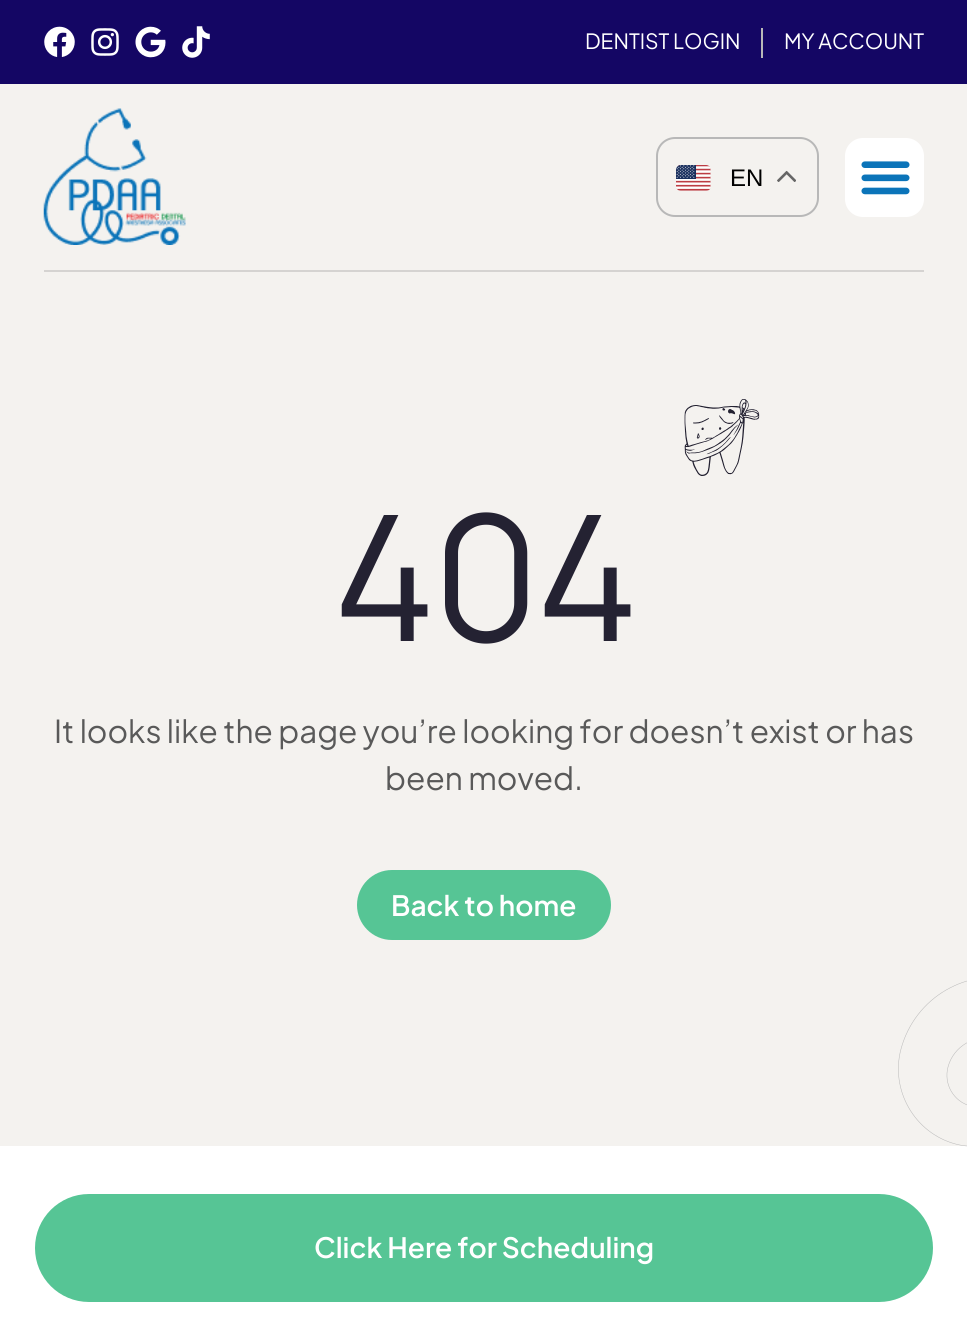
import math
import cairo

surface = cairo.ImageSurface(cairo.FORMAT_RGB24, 967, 1323)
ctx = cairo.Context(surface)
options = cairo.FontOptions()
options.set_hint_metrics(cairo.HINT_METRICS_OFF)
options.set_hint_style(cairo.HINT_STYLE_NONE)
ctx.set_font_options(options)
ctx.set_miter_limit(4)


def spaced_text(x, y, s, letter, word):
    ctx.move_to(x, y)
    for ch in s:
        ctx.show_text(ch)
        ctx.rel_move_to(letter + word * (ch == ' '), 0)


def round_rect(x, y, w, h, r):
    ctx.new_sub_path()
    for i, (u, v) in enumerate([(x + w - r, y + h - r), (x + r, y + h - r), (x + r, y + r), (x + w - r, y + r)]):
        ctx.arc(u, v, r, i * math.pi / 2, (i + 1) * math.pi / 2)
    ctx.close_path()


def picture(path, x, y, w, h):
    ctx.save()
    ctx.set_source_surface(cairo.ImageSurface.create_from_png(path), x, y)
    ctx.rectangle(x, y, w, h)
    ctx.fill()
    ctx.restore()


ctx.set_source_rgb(1, 1, 1)
ctx.paint()
ctx.set_source_rgb(0.082, 0.027, 0.392)
ctx.rectangle(0, 0, 967, 84)
ctx.fill()
picture("img1.png", 44, 26, 31, 31)
picture("img2.png", 91, 28, 28, 28)
picture("img3.png", 135, 26, 31, 32)
picture("img4.png", 182, 26, 28, 32)
ctx.select_font_face("Plus Jakarta Sans")
ctx.set_font_size(21)
ctx.set_source_rgb(1, 1, 1)
ctx.move_to(585, 49)
ctx.show_text("DENTIST LOGIN")
ctx.set_source_rgb(0.722, 0.722, 0.722)
ctx.rectangle(761, 28, 2, 30)
ctx.fill()
ctx.set_source_rgb(1, 1, 1)
ctx.move_to(784, 49)
ctx.show_text("MY ACCOUNT")
ctx.set_source_rgb(0.957, 0.949, 0.937)
ctx.rectangle(0, 84, 967, 1062)
ctx.fill()
ctx.set_source_rgb(0.835, 0.827, 0.82)
ctx.rectangle(44, 270, 880, 2)
ctx.fill()
picture("img5.png", 43, 108, 143, 137)
round_rect(657, 138, 161, 78, 18)
ctx.set_source_rgb(0.722, 0.722, 0.722)
ctx.stroke()
picture("img6.png", 676, 165, 35, 26)
ctx.select_font_face("Liberation Sans")
ctx.set_font_size(24)
ctx.set_source_rgb(0, 0, 0)
ctx.move_to(730, 186)
ctx.show_text("EN")
picture("img7.png", 777, 170, 19, 12)
ctx.set_source_rgb(1, 1, 1)
round_rect(845, 138, 79, 79, 18)
ctx.fill()
picture("img8.png", 861, 161, 49, 34)
ctx.new_path()
ctx.move_to(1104.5, 1129)
ctx.curve_to(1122, 1064, 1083.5, 997.5, 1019, 980.5)
ctx.curve_to(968, 966.5, 915, 997, 901, 1049)
ctx.curve_to(890, 1090, 914.5, 1133, 955.5, 1144)
ctx.curve_to(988.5, 1153, 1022.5, 1133, 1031.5, 1100)
ctx.curve_to(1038.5, 1073.5, 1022.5, 1046.5, 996.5, 1039)
ctx.curve_to(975.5, 1033.5, 953.5, 1046, 948, 1067)
ctx.curve_to(943.5, 1084, 953.5, 1101.5, 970.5, 1106)
ctx.curve_to(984, 1110, 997.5, 1102, 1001.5, 1088)
ctx.curve_to(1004, 1077.5, 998, 1066, 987, 1063.5)
ctx.set_source_rgb(0.722, 0.722, 0.722)
ctx.set_line_width(0.5)
ctx.set_line_cap(cairo.LINE_CAP_ROUND)
ctx.stroke()
picture("img9.png", 684, 399, 76, 77)
ctx.select_font_face("Manrope")
ctx.set_font_size(175)
ctx.set_source_rgb(0.141, 0.133, 0.196)
spaced_text(333, 641, "404", -3.5, 0)
ctx.select_font_face("Plus Jakarta Sans")
ctx.set_font_size(31.5)
ctx.set_source_rgb(0.349, 0.349, 0.349)
ctx.move_to(54, 743)
ctx.show_text("It looks like the page you’re looking for doesn’t exist or has")
ctx.move_to(385, 790)
ctx.show_text("been moved.")
ctx.set_source_rgb(0.337, 0.773, 0.584)
round_rect(357, 870, 254, 70, 35)
ctx.fill()
ctx.select_font_face("Plus Jakarta Sans SemiBold")
ctx.set_font_size(28)
ctx.set_source_rgb(1, 1, 1)
ctx.move_to(391, 916)
ctx.show_text("Back to home")
ctx.set_source_rgb(0.337, 0.773, 0.584)
round_rect(35, 1194, 898, 108, 54)
ctx.fill()
ctx.set_source_rgb(1, 1, 1)
ctx.move_to(314, 1258)
ctx.show_text("Click Here for Scheduling")
surface.write_to_png("page.png")
